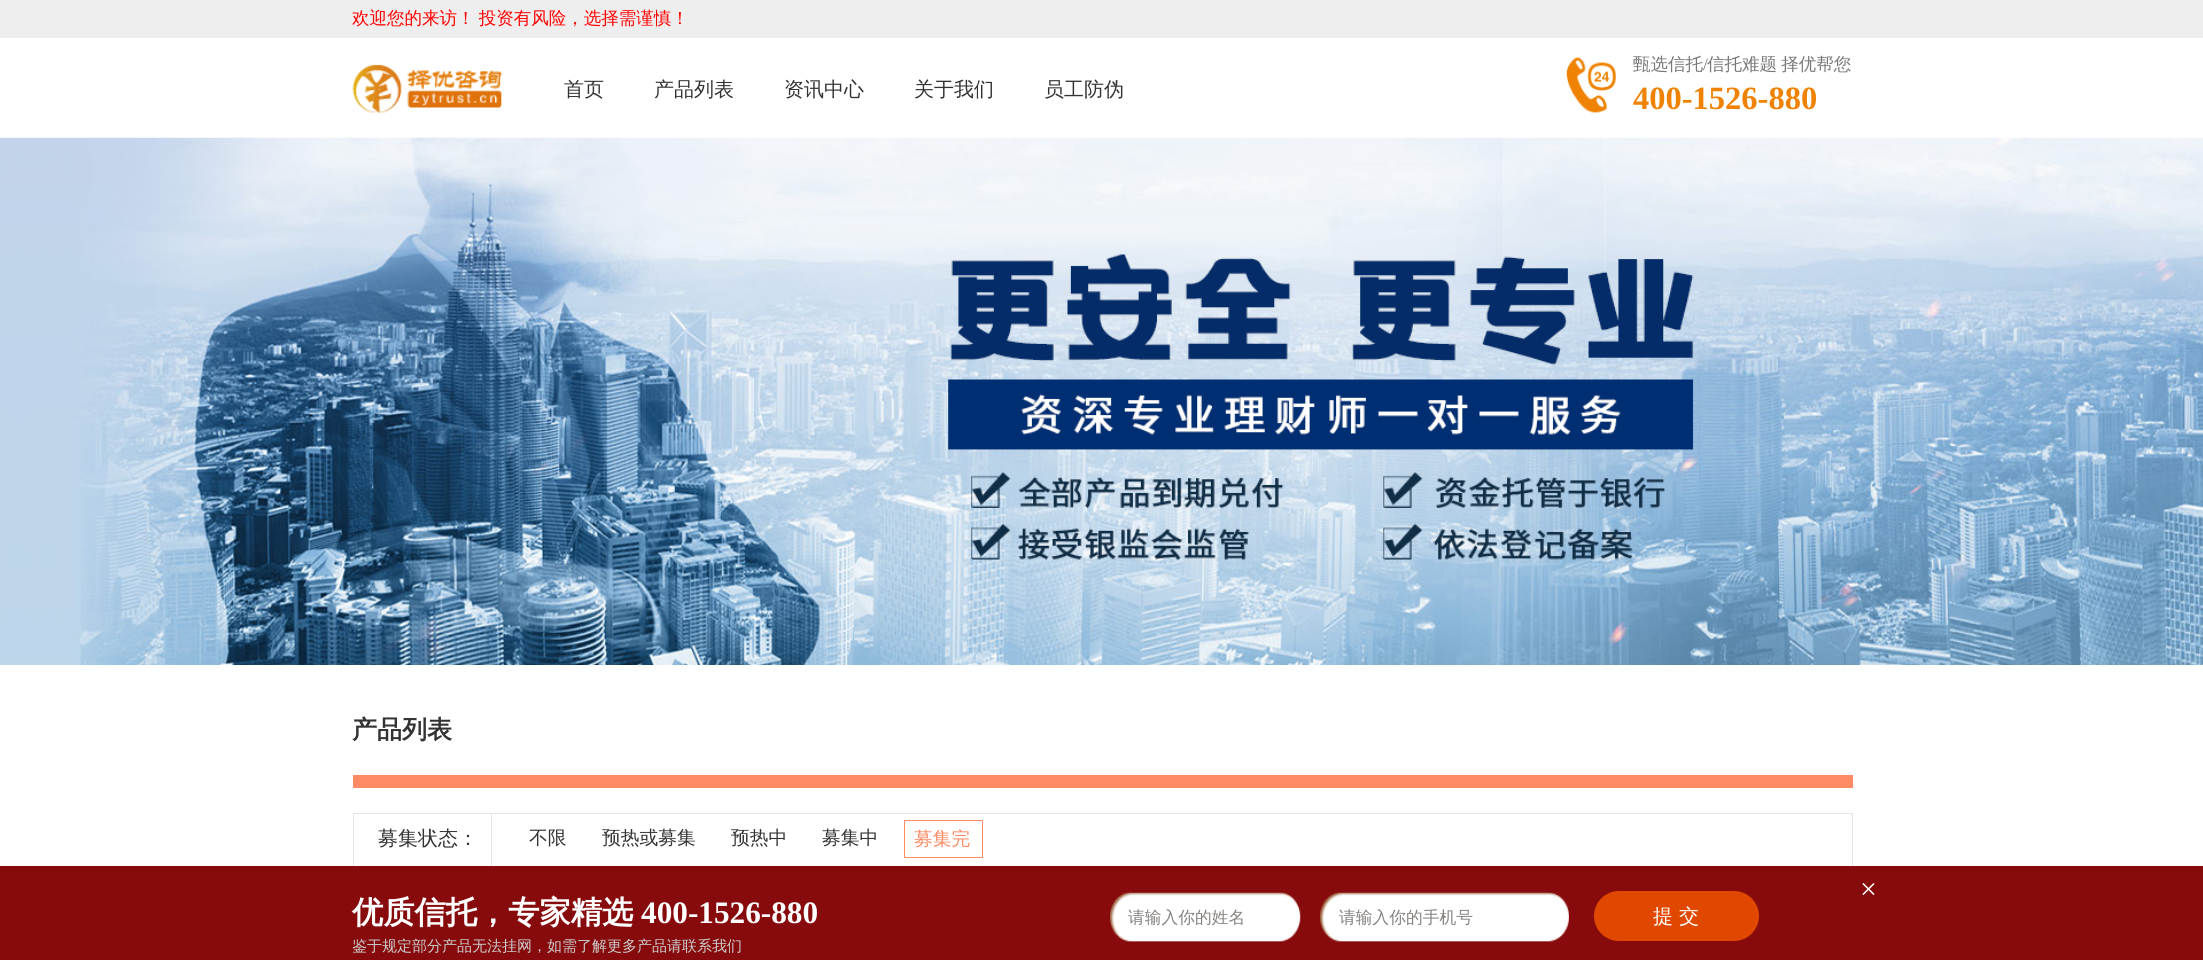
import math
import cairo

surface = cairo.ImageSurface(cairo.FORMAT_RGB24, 2203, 960)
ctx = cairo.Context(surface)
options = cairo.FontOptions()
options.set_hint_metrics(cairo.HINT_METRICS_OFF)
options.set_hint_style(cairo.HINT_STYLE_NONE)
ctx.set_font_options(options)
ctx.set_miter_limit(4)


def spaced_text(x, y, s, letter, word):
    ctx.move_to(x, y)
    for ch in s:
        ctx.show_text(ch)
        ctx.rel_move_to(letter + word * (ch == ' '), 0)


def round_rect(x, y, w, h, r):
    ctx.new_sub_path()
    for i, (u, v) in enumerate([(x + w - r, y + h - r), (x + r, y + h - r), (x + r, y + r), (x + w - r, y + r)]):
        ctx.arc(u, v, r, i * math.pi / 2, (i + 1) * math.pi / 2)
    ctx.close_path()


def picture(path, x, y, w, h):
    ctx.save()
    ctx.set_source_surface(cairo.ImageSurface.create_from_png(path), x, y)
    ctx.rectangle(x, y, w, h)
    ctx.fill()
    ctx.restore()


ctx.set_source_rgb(1, 1, 1)
ctx.paint()
ctx.set_source_rgb(0.933, 0.933, 0.933)
ctx.rectangle(0, 0, 2203, 38)
ctx.fill()
ctx.select_font_face("WenQuanYi Zen Hei Medium")
ctx.set_font_size(17.5)
ctx.set_source_rgb(1, 0, 0)
spaced_text(352, 24, "欢迎您的来访！ 投资有风险，选择需谨慎！", 0, -1)
picture("img1.png", 352, 64, 150, 49)
ctx.set_font_size(20)
ctx.set_source_rgb(0.2, 0.2, 0.2)
ctx.move_to(564, 96)
ctx.show_text("首页")
ctx.move_to(654, 96)
ctx.show_text("产品列表")
ctx.move_to(784, 96)
ctx.show_text("资讯中心")
ctx.move_to(914, 96)
ctx.show_text("关于我们")
ctx.move_to(1044, 96)
ctx.show_text("员工防伪")
picture("img2.png", 1566, 57, 51, 56)
ctx.set_font_size(17.5)
ctx.set_source_rgb(0.467, 0.467, 0.467)
ctx.move_to(1633, 70)
ctx.show_text("甄选信托")
ctx.select_font_face("Liberation Serif")
ctx.move_to(1703, 70)
ctx.show_text("/")
ctx.select_font_face("WenQuanYi Zen Hei Medium")
spaced_text(1707, 70, "信托难题 择优帮您", 0, -1)
ctx.select_font_face("Liberation Serif", cairo.FONT_SLANT_NORMAL, cairo.FONT_WEIGHT_BOLD)
ctx.set_font_size(32.5)
ctx.set_source_rgb(0.937, 0.51, 0.004)
ctx.move_to(1633, 109)
ctx.show_text("400-1526-880")
picture("img3.png", 0, 137, 2203, 528)
ctx.set_source_rgb(1, 0.545, 0.396)
ctx.rectangle(353, 775, 1500, 13)
ctx.fill()
ctx.select_font_face("WenQuanYi Zen Hei", cairo.FONT_SLANT_NORMAL, cairo.FONT_WEIGHT_BOLD)
ctx.set_font_size(25)
ctx.set_source_rgb(0.2, 0.2, 0.2)
ctx.move_to(352, 738)
ctx.show_text("产品列表")
ctx.rectangle(353.5, 813.5, 1499, 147)
ctx.set_source_rgb(0.898, 0.898, 0.898)
ctx.set_line_width(1)
ctx.stroke()
ctx.rectangle(491, 814, 1, 52)
ctx.fill()
ctx.select_font_face("WenQuanYi Zen Hei Medium")
ctx.set_font_size(20)
ctx.set_source_rgb(0.2, 0.2, 0.2)
ctx.move_to(378, 845)
ctx.show_text("募集状态：")
ctx.set_font_size(18.75)
ctx.move_to(529, 844)
ctx.show_text("不限")
ctx.move_to(602, 844)
ctx.show_text("预热或募集")
ctx.move_to(731, 844)
ctx.show_text("预热中")
ctx.move_to(822, 844)
ctx.show_text("募集中")
ctx.rectangle(904.5, 820.5, 78, 37)
ctx.set_source_rgb(1, 0.545, 0.396)
ctx.stroke()
ctx.move_to(914, 845)
ctx.show_text("募集完")
ctx.set_source_rgb(0.529, 0.043, 0.051)
ctx.rectangle(0, 866, 2203, 94)
ctx.fill()
ctx.select_font_face("Liberation Serif")
ctx.set_font_size(30)
ctx.set_source_rgb(1, 1, 1)
ctx.move_to(1860, 899)
ctx.show_text("×")
ctx.select_font_face("WenQuanYi Zen Hei", cairo.FONT_SLANT_NORMAL, cairo.FONT_WEIGHT_BOLD)
ctx.set_font_size(31.25)
ctx.move_to(352, 923)
ctx.show_text("优质信托，专家精选")
ctx.select_font_face("Liberation Serif", cairo.FONT_SLANT_NORMAL, cairo.FONT_WEIGHT_BOLD)
ctx.move_to(641, 923)
ctx.show_text("400-1526-880")
ctx.save()
ctx.rectangle(353, 866, 465, 94)
ctx.clip()
ctx.select_font_face("WenQuanYi Zen Hei Medium")
ctx.set_font_size(15)
ctx.set_source_rgb(0.8, 0.8, 0.8)
ctx.move_to(352, 951)
ctx.show_text("鉴于规定部分产品无法挂网，如需了解更多产品请联系我们")
ctx.restore()
picture("img4.png", 1110, 892, 191, 50)
ctx.select_font_face("WenQuanYi Zen Hei Medium")
ctx.set_font_size(16.75)
ctx.set_source_rgb(0.522, 0.51, 0.502)
ctx.move_to(1128, 923)
ctx.show_text("请输入你的姓名")
picture("img5.png", 1320, 892, 249, 50)
ctx.move_to(1339, 923)
ctx.show_text("请输入你的手机号")
ctx.set_source_rgb(0.878, 0.282, 0)
round_rect(1594, 891, 165, 50, 25)
ctx.fill()
ctx.set_font_size(20)
ctx.set_source_rgb(1, 1, 1)
ctx.move_to(1653, 923)
ctx.show_text("提 交")
surface.write_to_png("page.png")
